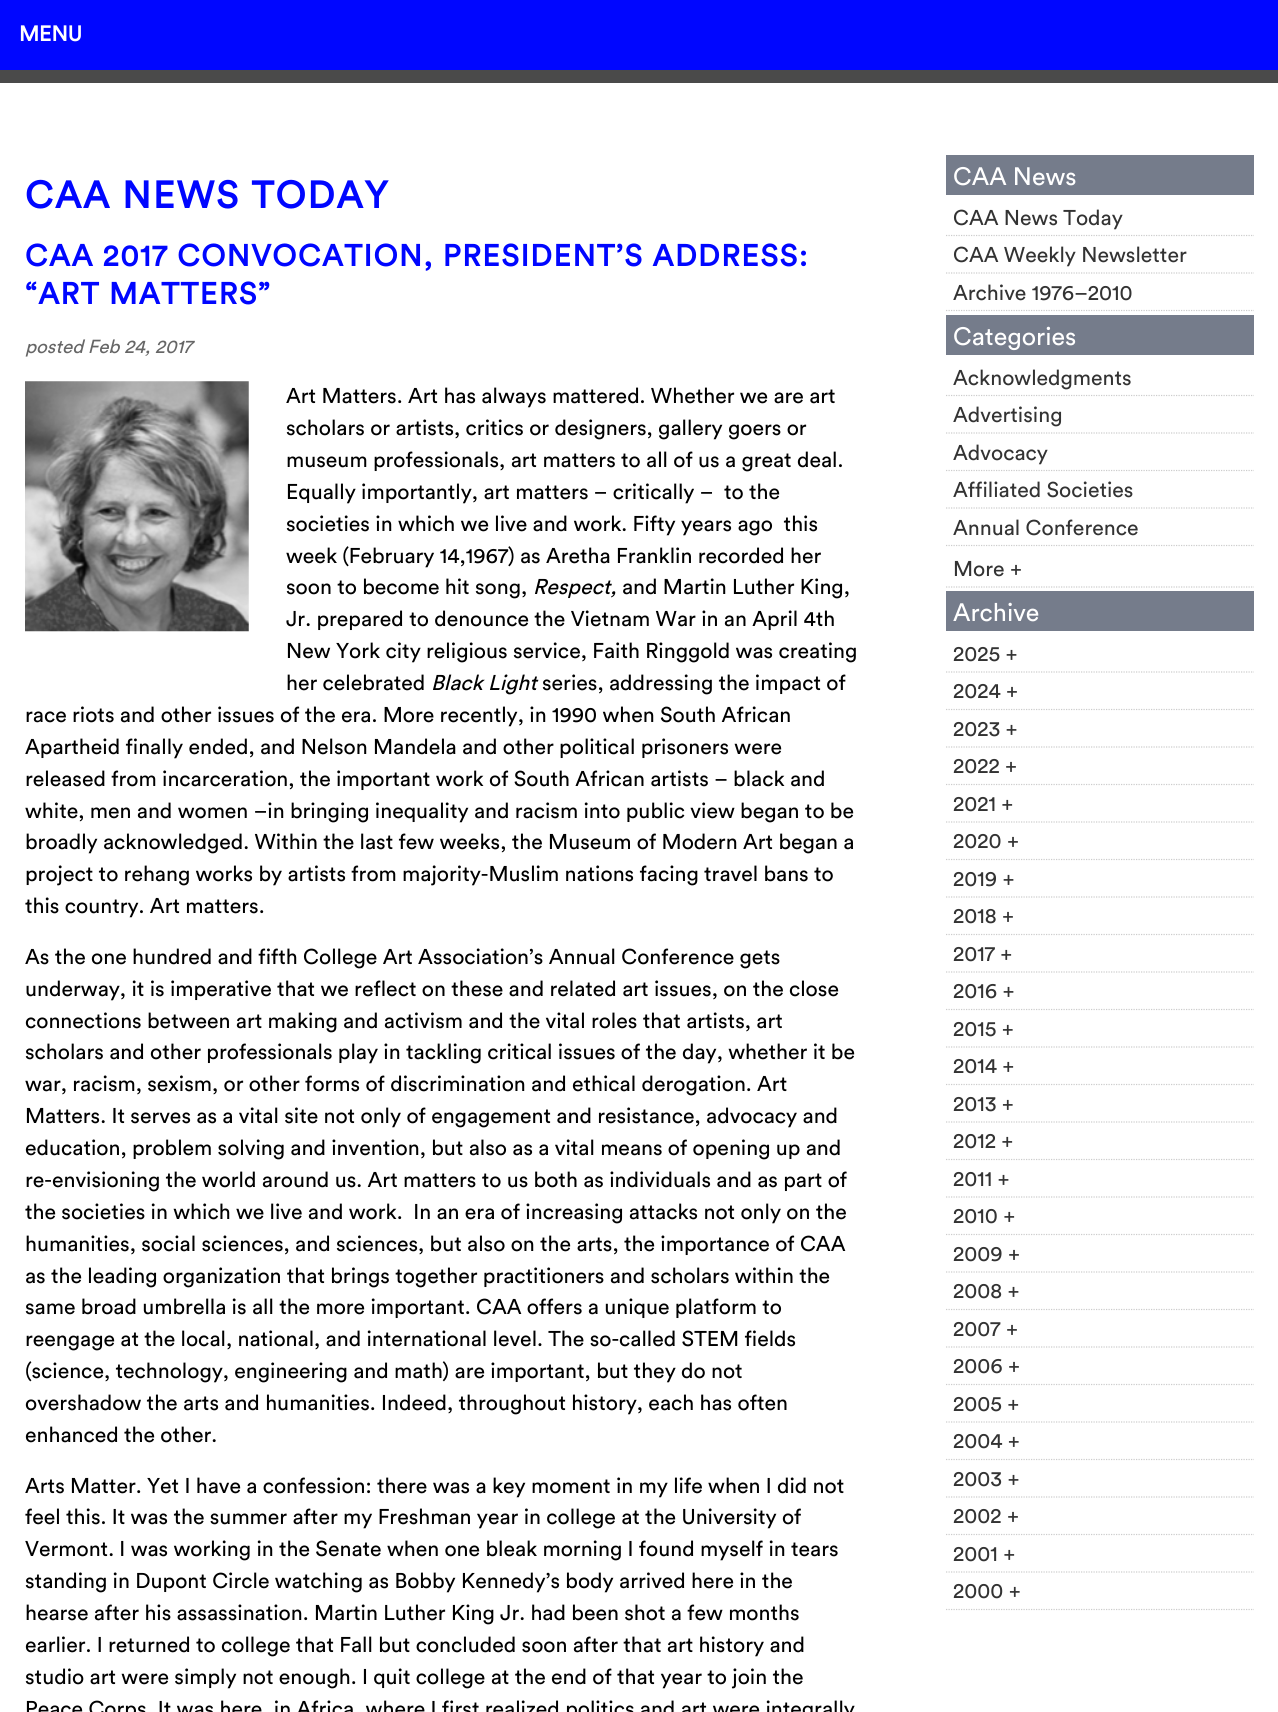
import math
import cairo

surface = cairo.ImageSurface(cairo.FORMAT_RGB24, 1278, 1712)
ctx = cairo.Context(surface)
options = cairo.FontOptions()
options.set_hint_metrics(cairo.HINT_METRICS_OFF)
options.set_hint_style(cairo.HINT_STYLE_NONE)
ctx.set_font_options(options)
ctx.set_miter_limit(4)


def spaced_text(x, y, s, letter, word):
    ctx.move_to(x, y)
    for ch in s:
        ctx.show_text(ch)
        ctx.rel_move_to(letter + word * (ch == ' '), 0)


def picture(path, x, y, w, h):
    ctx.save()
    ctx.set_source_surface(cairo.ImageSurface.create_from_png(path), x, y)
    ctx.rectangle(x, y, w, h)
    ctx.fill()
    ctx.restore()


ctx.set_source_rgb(0.29, 0.29, 0.29)
ctx.paint()
ctx.set_source_rgb(0, 0.024, 1)
ctx.rectangle(0, 0, 1278, 70)
ctx.fill()
ctx.select_font_face("Circular", cairo.FONT_SLANT_NORMAL, cairo.FONT_WEIGHT_BOLD)
ctx.set_font_size(21.25)
ctx.set_source_rgb(1, 1, 1)
ctx.move_to(19, 41)
ctx.show_text("MENU")
ctx.rectangle(0, 83, 1278, 1629)
ctx.fill()
ctx.set_font_size(37.5)
ctx.set_source_rgb(0, 0.024, 1)
spaced_text(25, 208, "CAA NEWS TODAY", 1.9, 0)
ctx.set_font_size(30)
spaced_text(25, 266, "CAA 2017 CONVOCATION, PRESIDENT’S ADDRESS:", 1.5, 0)
spaced_text(25, 304, "“ART MATTERS”", 1.5, 0)
ctx.select_font_face("Circular", cairo.FONT_SLANT_ITALIC)
ctx.set_font_size(18.75)
ctx.set_source_rgb(0.4, 0.4, 0.4)
ctx.move_to(25, 353)
ctx.show_text("posted Feb 24, 2017")
picture("img1.png", 25, 381, 224, 251)
ctx.select_font_face("Circular")
ctx.set_font_size(21.25)
ctx.set_source_rgb(0, 0, 0)
ctx.move_to(286, 403)
ctx.show_text("Art Matters. Art has always mattered. Whether we are art")
ctx.move_to(286, 435)
ctx.show_text("scholars or artists, critics or designers, gallery goers or")
ctx.move_to(286, 467)
ctx.show_text("museum professionals, art matters to all of us a great deal.")
ctx.move_to(286, 499)
ctx.show_text("Equally importantly, art matters – critically –  to the")
ctx.move_to(286, 531)
ctx.show_text("societies in which we live and work. Fifty years ago  this")
ctx.move_to(286, 563)
ctx.show_text("week (February 14,1967) as Aretha Franklin recorded her")
ctx.move_to(286, 594)
ctx.show_text("soon to become hit song,")
ctx.select_font_face("Circular", cairo.FONT_SLANT_ITALIC)
ctx.move_to(533, 594)
ctx.show_text("Respect,")
ctx.select_font_face("Circular")
ctx.move_to(622, 594)
ctx.show_text("and Martin Luther King,")
ctx.move_to(286, 626)
ctx.show_text("Jr. prepared to denounce the Vietnam War in an April 4th")
ctx.move_to(286, 658)
ctx.show_text("New York city religious service, Faith Ringgold was creating")
ctx.move_to(286, 690)
ctx.show_text("her celebrated")
ctx.select_font_face("Circular", cairo.FONT_SLANT_ITALIC)
ctx.move_to(431, 690)
ctx.show_text("Black Light")
ctx.select_font_face("Circular")
ctx.move_to(542, 690)
ctx.show_text("series, addressing the impact of")
ctx.move_to(25, 722)
ctx.show_text("race riots and other issues of the era. More recently, in 1990 when South African")
ctx.move_to(25, 754)
ctx.show_text("Apartheid finally ended, and Nelson Mandela and other political prisoners were")
ctx.move_to(25, 786)
ctx.show_text("released from incarceration, the important work of South African artists – black and")
ctx.move_to(25, 818)
ctx.show_text("white, men and women –in bringing inequality and racism into public view began to be")
ctx.move_to(25, 849)
ctx.show_text("broadly acknowledged. Within the last few weeks, the Museum of Modern Art began a")
ctx.move_to(25, 881)
ctx.show_text("project to rehang works by artists from majority-Muslim nations facing travel bans to")
ctx.move_to(25, 913)
ctx.show_text("this country. Art matters.")
ctx.move_to(25, 964)
ctx.show_text("As the one hundred and fifth College Art Association’s Annual Conference gets")
ctx.move_to(25, 996)
ctx.show_text("underway, it is imperative that we reflect on these and related art issues, on the close")
ctx.move_to(25, 1028)
ctx.show_text("connections between art making and activism and the vital roles that artists, art")
ctx.move_to(25, 1059)
ctx.show_text("scholars and other professionals play in tackling critical issues of the day, whether it be")
ctx.move_to(25, 1091)
ctx.show_text("war, racism, sexism, or other forms of discrimination and ethical derogation. Art")
ctx.move_to(25, 1123)
ctx.show_text("Matters. It serves as a vital site not only of engagement and resistance, advocacy and")
ctx.move_to(25, 1155)
ctx.show_text("education, problem solving and invention, but also as a vital means of opening up and")
ctx.move_to(25, 1187)
ctx.show_text("re-envisioning the world around us. Art matters to us both as individuals and as part of")
ctx.move_to(25, 1219)
ctx.show_text("the societies in which we live and work.  In an era of increasing attacks not only on the")
ctx.move_to(25, 1251)
ctx.show_text("humanities, social sciences, and sciences, but also on the arts, the importance of CAA")
ctx.move_to(25, 1283)
ctx.show_text("as the leading organization that brings together practitioners and scholars within the")
ctx.move_to(25, 1314)
ctx.show_text("same broad umbrella is all the more important. CAA offers a unique platform to")
ctx.move_to(25, 1346)
ctx.show_text("reengage at the local, national, and international level. The so-called STEM fields")
ctx.move_to(25, 1378)
ctx.show_text("(science, technology, engineering and math) are important, but they do not")
ctx.move_to(25, 1410)
ctx.show_text("overshadow the arts and humanities. Indeed, throughout history, each has often")
ctx.move_to(25, 1442)
ctx.show_text("enhanced the other.")
ctx.move_to(25, 1493)
ctx.show_text("Arts Matter. Yet I have a confession: there was a key moment in my life when I did not")
ctx.move_to(25, 1524)
ctx.show_text("feel this. It was the summer after my Freshman year in college at the University of")
ctx.move_to(25, 1556)
ctx.show_text("Vermont. I was working in the Senate when one bleak morning I found myself in tears")
ctx.move_to(25, 1588)
ctx.show_text("standing in Dupont Circle watching as Bobby Kennedy’s body arrived here in the")
ctx.move_to(25, 1620)
ctx.show_text("hearse after his assassination. Martin Luther King Jr. had been shot a few months")
ctx.move_to(25, 1652)
ctx.show_text("earlier. I returned to college that Fall but concluded soon after that art history and")
ctx.move_to(25, 1684)
ctx.show_text("studio art were simply not enough. I quit college at the end of that year to join the")
ctx.move_to(25, 1716)
ctx.show_text("Peace Corps. It was here, in Africa, where I first realized politics and art were integrally")
ctx.set_source_rgb(0.459, 0.486, 0.545)
ctx.rectangle(946, 155, 308, 40)
ctx.fill()
ctx.set_font_size(25)
ctx.set_source_rgb(1, 1, 1)
ctx.move_to(953, 185)
ctx.show_text("CAA News")
ctx.new_path()
ctx.move_to(946, 235.5)
ctx.line_to(1254, 235.5)
ctx.set_source_rgb(0.8, 0.8, 0.8)
ctx.set_line_width(1.2)
ctx.set_dash([1.25, 1.25])
ctx.stroke()
ctx.set_font_size(21.25)
ctx.set_source_rgb(0.2, 0.2, 0.2)
ctx.move_to(953, 225)
ctx.show_text("CAA News Today")
ctx.new_path()
ctx.move_to(946, 273)
ctx.line_to(1254, 273)
ctx.set_source_rgb(0.8, 0.8, 0.8)
ctx.stroke()
ctx.set_source_rgb(0.2, 0.2, 0.2)
ctx.move_to(953, 262)
ctx.show_text("CAA Weekly Newsletter")
ctx.new_path()
ctx.move_to(946, 310.5)
ctx.line_to(1254, 310.5)
ctx.set_source_rgb(0.8, 0.8, 0.8)
ctx.stroke()
ctx.set_source_rgb(0.2, 0.2, 0.2)
ctx.move_to(953, 300)
ctx.show_text("Archive 1976–2010")
ctx.set_source_rgb(0.459, 0.486, 0.545)
ctx.rectangle(946, 315, 308, 40)
ctx.fill()
ctx.set_font_size(25)
ctx.set_source_rgb(1, 1, 1)
ctx.move_to(953, 345)
ctx.show_text("Categories")
ctx.new_path()
ctx.move_to(946, 395.5)
ctx.line_to(1254, 395.5)
ctx.set_source_rgb(0.8, 0.8, 0.8)
ctx.stroke()
ctx.set_font_size(21.25)
ctx.set_source_rgb(0.2, 0.2, 0.2)
ctx.move_to(953, 385)
ctx.show_text("Acknowledgments")
ctx.new_path()
ctx.move_to(946, 433)
ctx.line_to(1254, 433)
ctx.set_source_rgb(0.8, 0.8, 0.8)
ctx.stroke()
ctx.set_source_rgb(0.2, 0.2, 0.2)
ctx.move_to(953, 422)
ctx.show_text("Advertising")
ctx.new_path()
ctx.move_to(946, 470.5)
ctx.line_to(1254, 470.5)
ctx.set_source_rgb(0.8, 0.8, 0.8)
ctx.stroke()
ctx.set_source_rgb(0.2, 0.2, 0.2)
ctx.move_to(953, 460)
ctx.show_text("Advocacy")
ctx.new_path()
ctx.move_to(946, 508)
ctx.line_to(1254, 508)
ctx.set_source_rgb(0.8, 0.8, 0.8)
ctx.stroke()
ctx.set_source_rgb(0.2, 0.2, 0.2)
ctx.move_to(953, 497)
ctx.show_text("Affiliated Societies")
ctx.new_path()
ctx.move_to(946, 545.5)
ctx.line_to(1254, 545.5)
ctx.set_source_rgb(0.8, 0.8, 0.8)
ctx.stroke()
ctx.set_source_rgb(0.2, 0.2, 0.2)
ctx.move_to(953, 535)
ctx.show_text("Annual Conference")
ctx.new_path()
ctx.move_to(946, 587)
ctx.line_to(1254, 587)
ctx.set_source_rgb(0.8, 0.8, 0.8)
ctx.stroke()
ctx.set_source_rgb(0.2, 0.2, 0.2)
ctx.move_to(953, 576)
ctx.show_text("More +")
ctx.set_source_rgb(0.459, 0.486, 0.545)
ctx.rectangle(946, 591, 308, 40)
ctx.fill()
ctx.set_font_size(25)
ctx.set_source_rgb(1, 1, 1)
ctx.move_to(953, 621)
ctx.show_text("Archive")
ctx.new_path()
ctx.move_to(946, 672)
ctx.line_to(1254, 672)
ctx.set_source_rgb(0.8, 0.8, 0.8)
ctx.stroke()
ctx.set_font_size(21.25)
ctx.set_source_rgb(0.2, 0.2, 0.2)
ctx.move_to(953, 661)
ctx.show_text("2025 +")
ctx.new_path()
ctx.move_to(946, 709.5)
ctx.line_to(1254, 709.5)
ctx.set_source_rgb(0.8, 0.8, 0.8)
ctx.stroke()
ctx.set_source_rgb(0.2, 0.2, 0.2)
ctx.move_to(953, 698)
ctx.show_text("2024 +")
ctx.new_path()
ctx.move_to(946, 747)
ctx.line_to(1254, 747)
ctx.set_source_rgb(0.8, 0.8, 0.8)
ctx.stroke()
ctx.set_source_rgb(0.2, 0.2, 0.2)
ctx.move_to(953, 736)
ctx.show_text("2023 +")
ctx.new_path()
ctx.move_to(946, 784.5)
ctx.line_to(1254, 784.5)
ctx.set_source_rgb(0.8, 0.8, 0.8)
ctx.stroke()
ctx.set_source_rgb(0.2, 0.2, 0.2)
ctx.move_to(953, 773)
ctx.show_text("2022 +")
ctx.new_path()
ctx.move_to(946, 822)
ctx.line_to(1254, 822)
ctx.set_source_rgb(0.8, 0.8, 0.8)
ctx.stroke()
ctx.set_source_rgb(0.2, 0.2, 0.2)
ctx.move_to(953, 811)
ctx.show_text("2021 +")
ctx.new_path()
ctx.move_to(946, 859.5)
ctx.line_to(1254, 859.5)
ctx.set_source_rgb(0.8, 0.8, 0.8)
ctx.stroke()
ctx.set_source_rgb(0.2, 0.2, 0.2)
ctx.move_to(953, 848)
ctx.show_text("2020 +")
ctx.new_path()
ctx.move_to(946, 897)
ctx.line_to(1254, 897)
ctx.set_source_rgb(0.8, 0.8, 0.8)
ctx.stroke()
ctx.set_source_rgb(0.2, 0.2, 0.2)
ctx.move_to(953, 886)
ctx.show_text("2019 +")
ctx.new_path()
ctx.move_to(946, 934.5)
ctx.line_to(1254, 934.5)
ctx.set_source_rgb(0.8, 0.8, 0.8)
ctx.stroke()
ctx.set_source_rgb(0.2, 0.2, 0.2)
ctx.move_to(953, 923)
ctx.show_text("2018 +")
ctx.new_path()
ctx.move_to(946, 972)
ctx.line_to(1254, 972)
ctx.set_source_rgb(0.8, 0.8, 0.8)
ctx.stroke()
ctx.set_source_rgb(0.2, 0.2, 0.2)
ctx.move_to(953, 961)
ctx.show_text("2017 +")
ctx.new_path()
ctx.move_to(946, 1009.5)
ctx.line_to(1254, 1009.5)
ctx.set_source_rgb(0.8, 0.8, 0.8)
ctx.stroke()
ctx.set_source_rgb(0.2, 0.2, 0.2)
ctx.move_to(953, 998)
ctx.show_text("2016 +")
ctx.new_path()
ctx.move_to(946, 1047)
ctx.line_to(1254, 1047)
ctx.set_source_rgb(0.8, 0.8, 0.8)
ctx.stroke()
ctx.set_source_rgb(0.2, 0.2, 0.2)
ctx.move_to(953, 1036)
ctx.show_text("2015 +")
ctx.new_path()
ctx.move_to(946, 1084.5)
ctx.line_to(1254, 1084.5)
ctx.set_source_rgb(0.8, 0.8, 0.8)
ctx.stroke()
ctx.set_source_rgb(0.2, 0.2, 0.2)
ctx.move_to(953, 1073)
ctx.show_text("2014 +")
ctx.new_path()
ctx.move_to(946, 1122)
ctx.line_to(1254, 1122)
ctx.set_source_rgb(0.8, 0.8, 0.8)
ctx.stroke()
ctx.set_source_rgb(0.2, 0.2, 0.2)
ctx.move_to(953, 1111)
ctx.show_text("2013 +")
ctx.new_path()
ctx.move_to(946, 1159.5)
ctx.line_to(1254, 1159.5)
ctx.set_source_rgb(0.8, 0.8, 0.8)
ctx.stroke()
ctx.set_source_rgb(0.2, 0.2, 0.2)
ctx.move_to(953, 1148)
ctx.show_text("2012 +")
ctx.new_path()
ctx.move_to(946, 1197)
ctx.line_to(1254, 1197)
ctx.set_source_rgb(0.8, 0.8, 0.8)
ctx.stroke()
ctx.set_source_rgb(0.2, 0.2, 0.2)
ctx.move_to(953, 1186)
ctx.show_text("2011 +")
ctx.new_path()
ctx.move_to(946, 1234.5)
ctx.line_to(1254, 1234.5)
ctx.set_source_rgb(0.8, 0.8, 0.8)
ctx.stroke()
ctx.set_source_rgb(0.2, 0.2, 0.2)
ctx.move_to(953, 1223)
ctx.show_text("2010 +")
ctx.new_path()
ctx.move_to(946, 1272)
ctx.line_to(1254, 1272)
ctx.set_source_rgb(0.8, 0.8, 0.8)
ctx.stroke()
ctx.set_source_rgb(0.2, 0.2, 0.2)
ctx.move_to(953, 1261)
ctx.show_text("2009 +")
ctx.new_path()
ctx.move_to(946, 1309.5)
ctx.line_to(1254, 1309.5)
ctx.set_source_rgb(0.8, 0.8, 0.8)
ctx.stroke()
ctx.set_source_rgb(0.2, 0.2, 0.2)
ctx.move_to(953, 1298)
ctx.show_text("2008 +")
ctx.new_path()
ctx.move_to(946, 1347)
ctx.line_to(1254, 1347)
ctx.set_source_rgb(0.8, 0.8, 0.8)
ctx.stroke()
ctx.set_source_rgb(0.2, 0.2, 0.2)
ctx.move_to(953, 1336)
ctx.show_text("2007 +")
ctx.new_path()
ctx.move_to(946, 1384.5)
ctx.line_to(1254, 1384.5)
ctx.set_source_rgb(0.8, 0.8, 0.8)
ctx.stroke()
ctx.set_source_rgb(0.2, 0.2, 0.2)
ctx.move_to(953, 1373)
ctx.show_text("2006 +")
ctx.new_path()
ctx.move_to(946, 1422)
ctx.line_to(1254, 1422)
ctx.set_source_rgb(0.8, 0.8, 0.8)
ctx.stroke()
ctx.set_source_rgb(0.2, 0.2, 0.2)
ctx.move_to(953, 1411)
ctx.show_text("2005 +")
ctx.new_path()
ctx.move_to(946, 1459.5)
ctx.line_to(1254, 1459.5)
ctx.set_source_rgb(0.8, 0.8, 0.8)
ctx.stroke()
ctx.set_source_rgb(0.2, 0.2, 0.2)
ctx.move_to(953, 1448)
ctx.show_text("2004 +")
ctx.new_path()
ctx.move_to(946, 1497)
ctx.line_to(1254, 1497)
ctx.set_source_rgb(0.8, 0.8, 0.8)
ctx.stroke()
ctx.set_source_rgb(0.2, 0.2, 0.2)
ctx.move_to(953, 1486)
ctx.show_text("2003 +")
ctx.new_path()
ctx.move_to(946, 1534.5)
ctx.line_to(1254, 1534.5)
ctx.set_source_rgb(0.8, 0.8, 0.8)
ctx.stroke()
ctx.set_source_rgb(0.2, 0.2, 0.2)
ctx.move_to(953, 1523)
ctx.show_text("2002 +")
ctx.new_path()
ctx.move_to(946, 1572)
ctx.line_to(1254, 1572)
ctx.set_source_rgb(0.8, 0.8, 0.8)
ctx.stroke()
ctx.set_source_rgb(0.2, 0.2, 0.2)
ctx.move_to(953, 1561)
ctx.show_text("2001 +")
ctx.new_path()
ctx.move_to(946, 1609.5)
ctx.line_to(1254, 1609.5)
ctx.set_source_rgb(0.8, 0.8, 0.8)
ctx.stroke()
ctx.set_source_rgb(0.2, 0.2, 0.2)
ctx.move_to(953, 1598)
ctx.show_text("2000 +")
surface.write_to_png("page.png")
